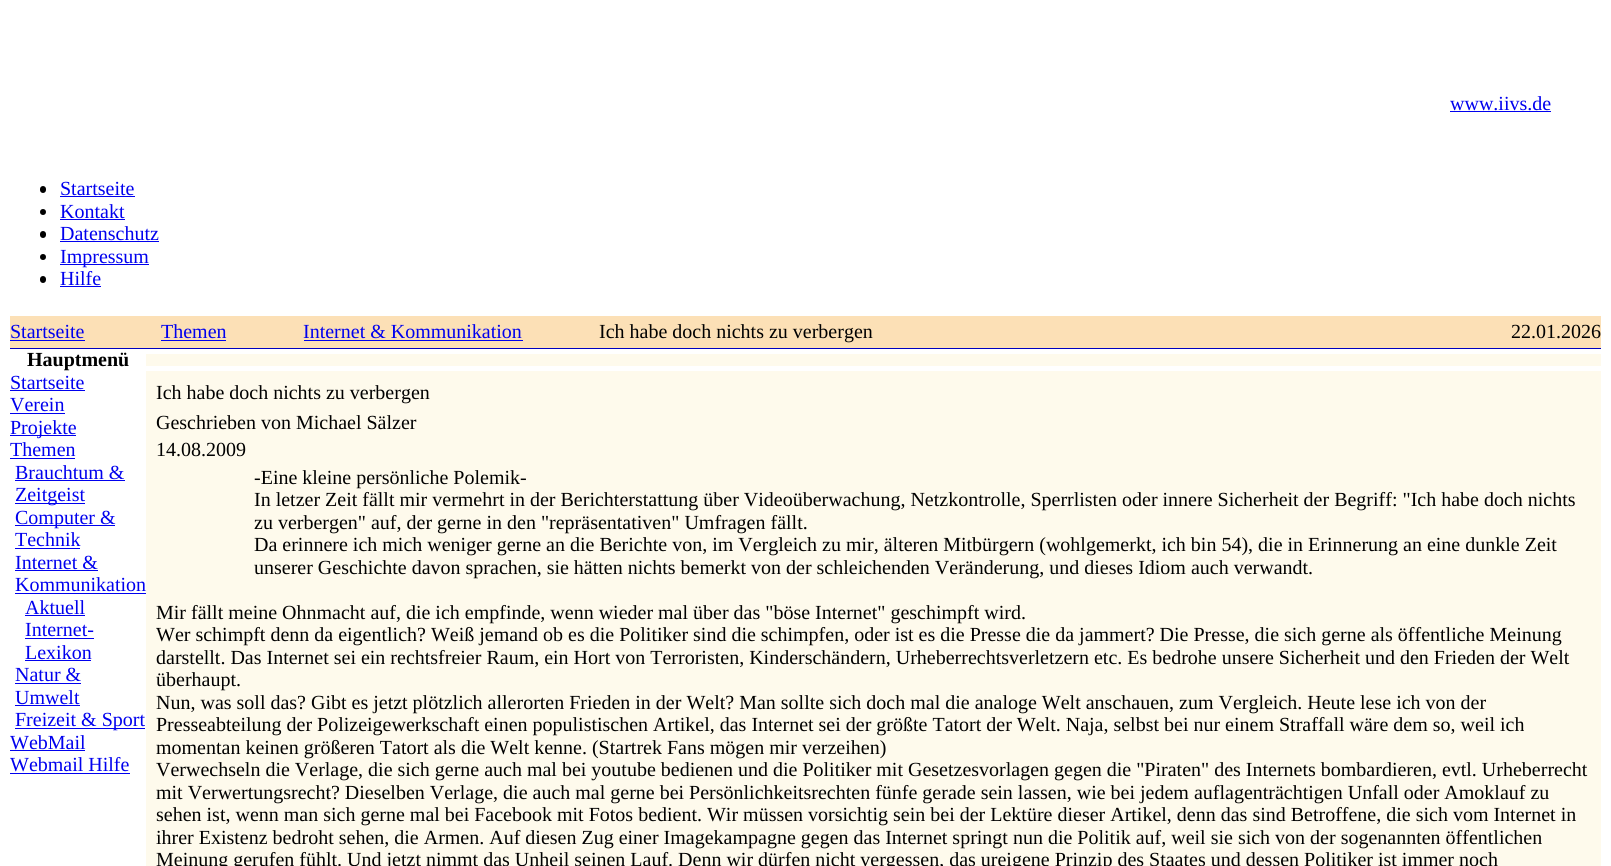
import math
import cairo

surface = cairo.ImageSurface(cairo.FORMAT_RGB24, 1611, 866)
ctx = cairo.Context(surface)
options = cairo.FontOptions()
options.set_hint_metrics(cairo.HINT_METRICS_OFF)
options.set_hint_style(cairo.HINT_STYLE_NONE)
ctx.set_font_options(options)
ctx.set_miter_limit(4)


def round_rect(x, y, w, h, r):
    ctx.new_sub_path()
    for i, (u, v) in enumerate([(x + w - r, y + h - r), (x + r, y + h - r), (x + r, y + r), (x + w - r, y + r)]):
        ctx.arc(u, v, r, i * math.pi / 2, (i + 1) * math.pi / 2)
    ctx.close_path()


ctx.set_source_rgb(1, 1, 1)
ctx.paint()
ctx.select_font_face("Liberation Serif")
ctx.set_font_size(20)
ctx.set_source_rgb(0, 0, 0.933)
ctx.move_to(1450, 110)
ctx.show_text("www.iivs.de")
ctx.rectangle(1450, 111, 101, 1)
ctx.fill()
ctx.set_source_rgb(0, 0, 0)
round_rect(40, 186, 6, 7, 3)
ctx.fill()
ctx.set_source_rgb(0, 0, 0.933)
ctx.move_to(60, 195)
ctx.show_text("Startseite")
ctx.rectangle(60, 196, 75, 1)
ctx.fill()
ctx.set_source_rgb(0, 0, 0)
ctx.arc(43, 212, 3, 0, 2 * math.pi)
ctx.fill()
ctx.set_source_rgb(0, 0, 0.933)
ctx.move_to(60, 218)
ctx.show_text("Kontakt")
ctx.rectangle(60, 219, 65, 1)
ctx.fill()
ctx.set_source_rgb(0, 0, 0)
round_rect(40, 231, 6, 7, 3)
ctx.fill()
ctx.set_source_rgb(0, 0, 0.933)
ctx.move_to(60, 240)
ctx.show_text("Datenschutz")
ctx.rectangle(60, 241, 99, 1)
ctx.fill()
ctx.set_source_rgb(0, 0, 0)
ctx.arc(43, 257, 3, 0, 2 * math.pi)
ctx.fill()
ctx.set_source_rgb(0, 0, 0.933)
ctx.rectangle(60, 264, 89, 1)
ctx.fill()
ctx.move_to(60, 263)
ctx.show_text("Impressum")
ctx.set_source_rgb(0, 0, 0)
round_rect(40, 276, 6, 7, 3)
ctx.fill()
ctx.set_source_rgb(0, 0, 0.933)
ctx.move_to(60, 285)
ctx.show_text("Hilfe")
ctx.rectangle(60, 286, 41, 1)
ctx.fill()
ctx.set_source_rgb(0.988, 0.878, 0.714)
ctx.rectangle(10, 316, 1591, 32)
ctx.fill()
ctx.set_source_rgb(0, 0, 0.753)
ctx.rectangle(10, 348, 1591, 1)
ctx.fill()
ctx.set_source_rgb(0, 0, 0.933)
ctx.move_to(10, 338)
ctx.show_text("Startseite")
ctx.rectangle(10, 340, 75, 1)
ctx.fill()
ctx.move_to(161, 338)
ctx.show_text("Themen")
ctx.rectangle(161, 340, 65, 1)
ctx.fill()
ctx.move_to(303, 338)
ctx.show_text("Internet & Kommunikation")
ctx.rectangle(304, 340, 219, 1)
ctx.fill()
ctx.set_source_rgb(0, 0, 0)
ctx.move_to(599, 338)
ctx.show_text("Ich habe doch nichts zu verbergen")
ctx.move_to(1511, 338)
ctx.show_text("22.01.2026")
ctx.select_font_face("Liberation Serif", cairo.FONT_SLANT_NORMAL, cairo.FONT_WEIGHT_BOLD)
ctx.move_to(27, 366)
ctx.show_text("Hauptmenü")
ctx.select_font_face("Liberation Serif")
ctx.set_source_rgb(0, 0, 0.933)
ctx.move_to(10, 389)
ctx.show_text("Startseite")
ctx.rectangle(10, 390, 75, 1)
ctx.fill()
ctx.move_to(10, 411)
ctx.show_text("Verein")
ctx.rectangle(10, 413, 55, 1)
ctx.fill()
ctx.rectangle(10, 435, 66, 1)
ctx.fill()
ctx.move_to(10, 434)
ctx.show_text("Projekte")
ctx.move_to(10, 456)
ctx.show_text("Themen")
ctx.rectangle(10, 458, 65, 1)
ctx.fill()
ctx.move_to(15, 479)
ctx.show_text("Brauchtum &")
ctx.rectangle(15, 480, 110, 1)
ctx.fill()
ctx.rectangle(15, 503, 70, 1)
ctx.fill()
ctx.move_to(15, 501)
ctx.show_text("Zeitgeist")
ctx.rectangle(15, 525, 100, 1)
ctx.fill()
ctx.move_to(15, 524)
ctx.show_text("Computer &")
ctx.move_to(15, 546)
ctx.show_text("Technik")
ctx.rectangle(15, 548, 65, 1)
ctx.fill()
ctx.move_to(15, 569)
ctx.show_text("Internet &")
ctx.rectangle(15, 570, 83, 1)
ctx.fill()
ctx.move_to(15, 591)
ctx.show_text("Kommunikation")
ctx.rectangle(15, 593, 131, 1)
ctx.fill()
ctx.move_to(25, 614)
ctx.show_text("Aktuell")
ctx.rectangle(25, 615, 60, 1)
ctx.fill()
ctx.move_to(25, 636)
ctx.show_text("Internet-")
ctx.rectangle(25, 638, 69, 1)
ctx.fill()
ctx.move_to(25, 659)
ctx.show_text("Lexikon")
ctx.rectangle(25, 660, 66, 1)
ctx.fill()
ctx.move_to(15, 681)
ctx.show_text("Natur &")
ctx.rectangle(15, 683, 66, 1)
ctx.fill()
ctx.move_to(15, 704)
ctx.show_text("Umwelt")
ctx.rectangle(15, 705, 65, 1)
ctx.fill()
ctx.rectangle(15, 728, 130, 1)
ctx.fill()
ctx.move_to(15, 726)
ctx.show_text("Freizeit & Sport")
ctx.move_to(10, 749)
ctx.show_text("WebMail")
ctx.rectangle(10, 750, 75, 1)
ctx.fill()
ctx.move_to(10, 771)
ctx.show_text("Webmail Hilfe")
ctx.rectangle(10, 773, 120, 1)
ctx.fill()
ctx.set_source_rgb(0.996, 0.98, 0.922)
ctx.rectangle(146, 354, 1455, 512)
ctx.fill()
ctx.set_source_rgb(1, 1, 1)
ctx.rectangle(146, 366, 1455, 5)
ctx.fill()
ctx.set_source_rgb(0, 0, 0)
ctx.move_to(156, 399)
ctx.show_text("Ich habe doch nichts zu verbergen")
ctx.move_to(156, 429)
ctx.show_text("Geschrieben von Michael Sälzer")
ctx.move_to(156, 456)
ctx.show_text("14.08.2009")
ctx.move_to(254, 484)
ctx.show_text("-Eine kleine persönliche Polemik-")
ctx.move_to(254, 506)
ctx.show_text("In letzer Zeit fällt mir vermehrt in der Berichterstattung über Videoüberwachung, Netzkontrolle, Sperrlisten oder innere Sicherheit der Begriff: \"Ich habe doch nichts")
ctx.move_to(254, 529)
ctx.show_text("zu verbergen\" auf, der gerne in den \"repräsentativen\" Umfragen fällt.")
ctx.move_to(254, 551)
ctx.show_text("Da erinnere ich mich weniger gerne an die Berichte von, im Vergleich zu mir, älteren Mitbürgern (wohlgemerkt, ich bin 54), die in Erinnerung an eine dunkle Zeit")
ctx.move_to(254, 574)
ctx.show_text("unserer Geschichte davon sprachen, sie hätten nichts bemerkt von der schleichenden Veränderung, und dieses Idiom auch verwandt.")
ctx.move_to(156, 619)
ctx.show_text("Mir fällt meine Ohnmacht auf, die ich empfinde, wenn wieder mal über das \"böse Internet\" geschimpft wird.")
ctx.move_to(156, 641)
ctx.show_text("Wer schimpft denn da eigentlich? Weiß jemand ob es die Politiker sind die schimpfen, oder ist es die Presse die da jammert? Die Presse, die sich gerne als öffentliche Meinung")
ctx.move_to(156, 664)
ctx.show_text("darstellt. Das Internet sei ein rechtsfreier Raum, ein Hort von Terroristen, Kinderschändern, Urheberrechtsverletzern etc. Es bedrohe unsere Sicherheit und den Frieden der Welt")
ctx.move_to(156, 686)
ctx.show_text("überhaupt.")
ctx.move_to(156, 709)
ctx.show_text("Nun, was soll das? Gibt es jetzt plötzlich allerorten Frieden in der Welt? Man sollte sich doch mal die analoge Welt anschauen, zum Vergleich. Heute lese ich von der")
ctx.move_to(156, 731)
ctx.show_text("Presseabteilung der Polizeigewerkschaft einen populistischen Artikel, das Internet sei der größte Tatort der Welt. Naja, selbst bei nur einem Straffall wäre dem so, weil ich")
ctx.move_to(156, 754)
ctx.show_text("momentan keinen größeren Tatort als die Welt kenne. (Startrek Fans mögen mir verzeihen)")
ctx.move_to(156, 776)
ctx.show_text("Verwechseln die Verlage, die sich gerne auch mal bei youtube bedienen und die Politiker mit Gesetzesvorlagen gegen die \"Piraten\" des Internets bombardieren, evtl. Urheberrecht")
ctx.move_to(156, 799)
ctx.show_text("mit Verwertungsrecht? Dieselben Verlage, die auch mal gerne bei Persönlichkeitsrechten fünfe gerade sein lassen, wie bei jedem auflagenträchtigen Unfall oder Amoklauf zu")
ctx.move_to(156, 821)
ctx.show_text("sehen ist, wenn man sich gerne mal bei Facebook mit Fotos bedient. Wir müssen vorsichtig sein bei der Lektüre dieser Artikel, denn das sind Betroffene, die sich vom Internet in")
ctx.move_to(156, 844)
ctx.show_text("ihrer Existenz bedroht sehen, die Armen. Auf diesen Zug einer Imagekampagne gegen das Internet springt nun die Politik auf, weil sie sich von der sogenannten öffentlichen")
ctx.move_to(156, 866)
ctx.show_text("Meinung gerufen fühlt. Und jetzt nimmt das Unheil seinen Lauf. Denn wir dürfen nicht vergessen, das ureigene Prinzip des Staates und dessen Politiker ist immer noch")
surface.write_to_png("page.png")
